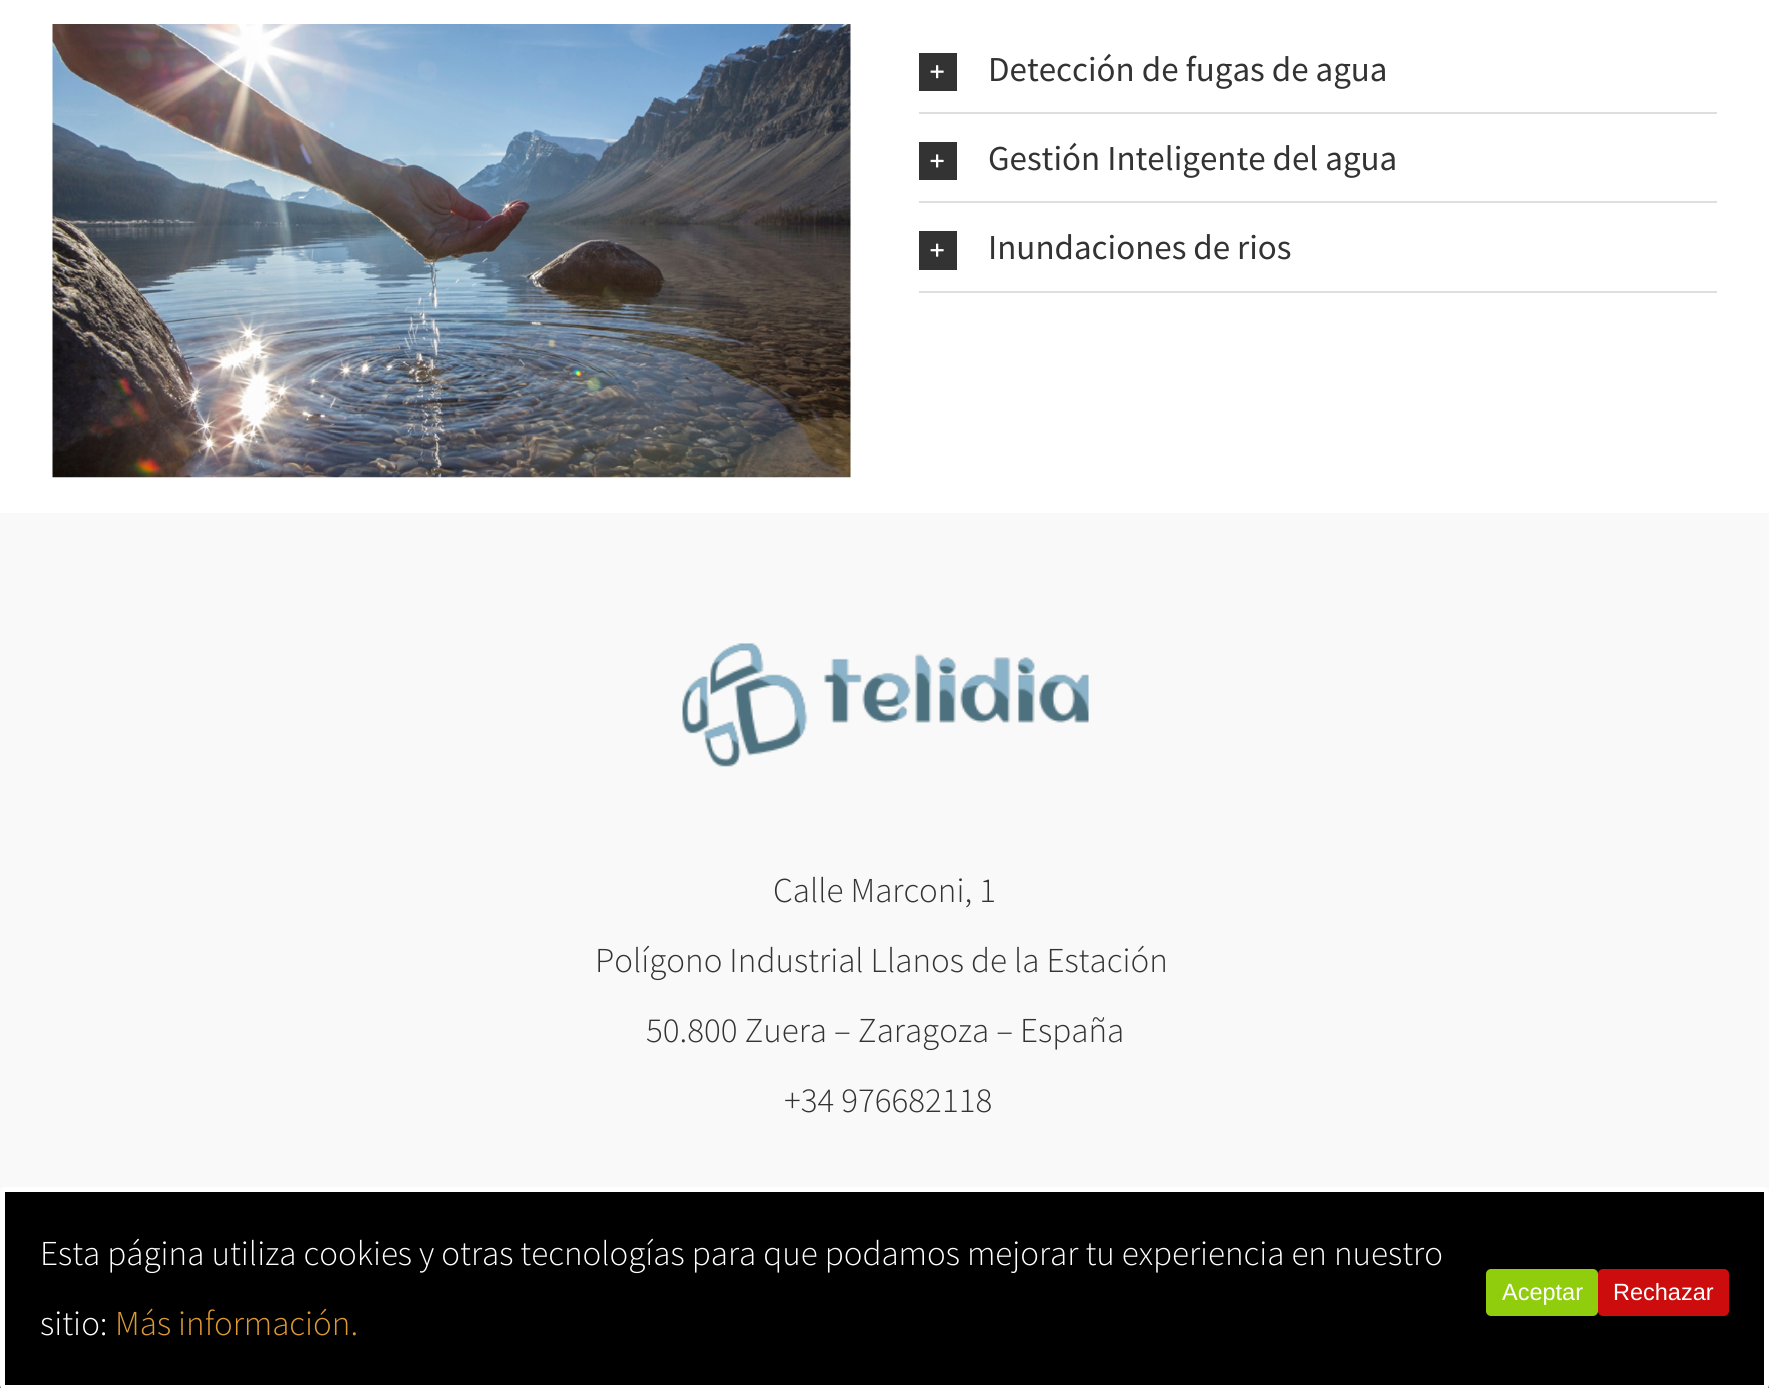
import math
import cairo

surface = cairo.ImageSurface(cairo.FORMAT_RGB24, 1769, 1388)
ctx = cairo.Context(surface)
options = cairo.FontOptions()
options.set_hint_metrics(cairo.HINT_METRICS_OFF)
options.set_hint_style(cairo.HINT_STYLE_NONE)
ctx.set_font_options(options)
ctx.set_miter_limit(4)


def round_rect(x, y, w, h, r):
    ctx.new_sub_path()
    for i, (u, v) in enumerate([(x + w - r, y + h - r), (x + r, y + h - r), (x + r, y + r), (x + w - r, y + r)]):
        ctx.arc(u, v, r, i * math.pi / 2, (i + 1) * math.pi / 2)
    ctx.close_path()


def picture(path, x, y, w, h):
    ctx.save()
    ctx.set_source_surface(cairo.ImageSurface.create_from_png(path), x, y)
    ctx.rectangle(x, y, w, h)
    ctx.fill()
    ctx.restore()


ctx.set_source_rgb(1, 1, 1)
ctx.paint()
picture("img1.png", 52, 24, 799, 454)
ctx.set_source_rgb(0.878, 0.871, 0.871)
ctx.rectangle(919, 112, 798, 2)
ctx.fill()
ctx.set_source_rgb(0.2, 0.2, 0.2)
ctx.rectangle(919, 53, 38, 38)
ctx.fill()
picture("img2.png", 930, 65, 14, 14)
ctx.select_font_face("Source Sans Pro")
ctx.set_font_size(35)
ctx.move_to(988, 81)
ctx.show_text("Detección de fugas de agua")
ctx.set_source_rgb(0.878, 0.871, 0.871)
ctx.rectangle(919, 201, 798, 2)
ctx.fill()
ctx.set_source_rgb(0.2, 0.2, 0.2)
ctx.rectangle(919, 142, 38, 38)
ctx.fill()
picture("img3.png", 930, 154, 14, 14)
ctx.move_to(988, 170)
ctx.show_text("Gestión Inteligente del agua")
ctx.set_source_rgb(0.878, 0.871, 0.871)
ctx.rectangle(919, 291, 798, 2)
ctx.fill()
ctx.set_source_rgb(0.2, 0.2, 0.2)
ctx.rectangle(919, 231, 38, 39)
ctx.fill()
picture("img4.png", 930, 243, 14, 14)
ctx.move_to(988, 259)
ctx.show_text("Inundaciones de rios")
ctx.set_source_rgb(0.976, 0.976, 0.976)
ctx.rectangle(0, 513, 1769, 679)
ctx.fill()
picture("img5.png", 682, 643, 407, 124)
ctx.select_font_face("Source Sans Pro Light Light")
ctx.set_source_rgb(0.2, 0.2, 0.2)
ctx.move_to(773, 902)
ctx.show_text("Calle Marconi, 1")
ctx.move_to(595, 972)
ctx.show_text("Polígono Industrial Llanos de la Estación")
ctx.move_to(646, 1042)
ctx.show_text("50.800 Zuera – Zaragoza – España")
ctx.move_to(784, 1112)
ctx.show_text("+34 976682118")
ctx.set_source_rgb(0.302, 0.443, 0.494)
ctx.rectangle(0, 1385, 1769, 3)
ctx.fill()
ctx.set_source_rgb(0, 0, 0)
round_rect(2.5, 1189.5, 1764, 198, 2.5)
ctx.fill_preserve()
ctx.set_source_rgb(1, 1, 1)
ctx.set_line_width(5)
ctx.stroke()
ctx.move_to(40, 1265)
ctx.show_text("Esta página utiliza cookies y otras tecnologías para que podamos mejorar tu experiencia en nuestro")
ctx.move_to(40, 1335)
ctx.show_text("sitio:")
ctx.set_source_rgb(0.867, 0.6, 0.2)
ctx.move_to(115, 1335)
ctx.show_text("Más información.")
ctx.set_source_rgb(0.565, 0.804, 0.051)
round_rect(1486, 1269, 112, 47, 5)
ctx.fill()
ctx.select_font_face("Liberation Sans")
ctx.set_font_size(23.5)
ctx.set_source_rgb(1, 1, 1)
ctx.move_to(1502, 1300)
ctx.show_text("Aceptar")
ctx.set_source_rgb(0.804, 0.051, 0.051)
round_rect(1598, 1269, 131, 47, 5)
ctx.fill()
ctx.set_source_rgb(1, 1, 1)
ctx.move_to(1613, 1300)
ctx.show_text("Rechazar")
surface.write_to_png("page.png")
